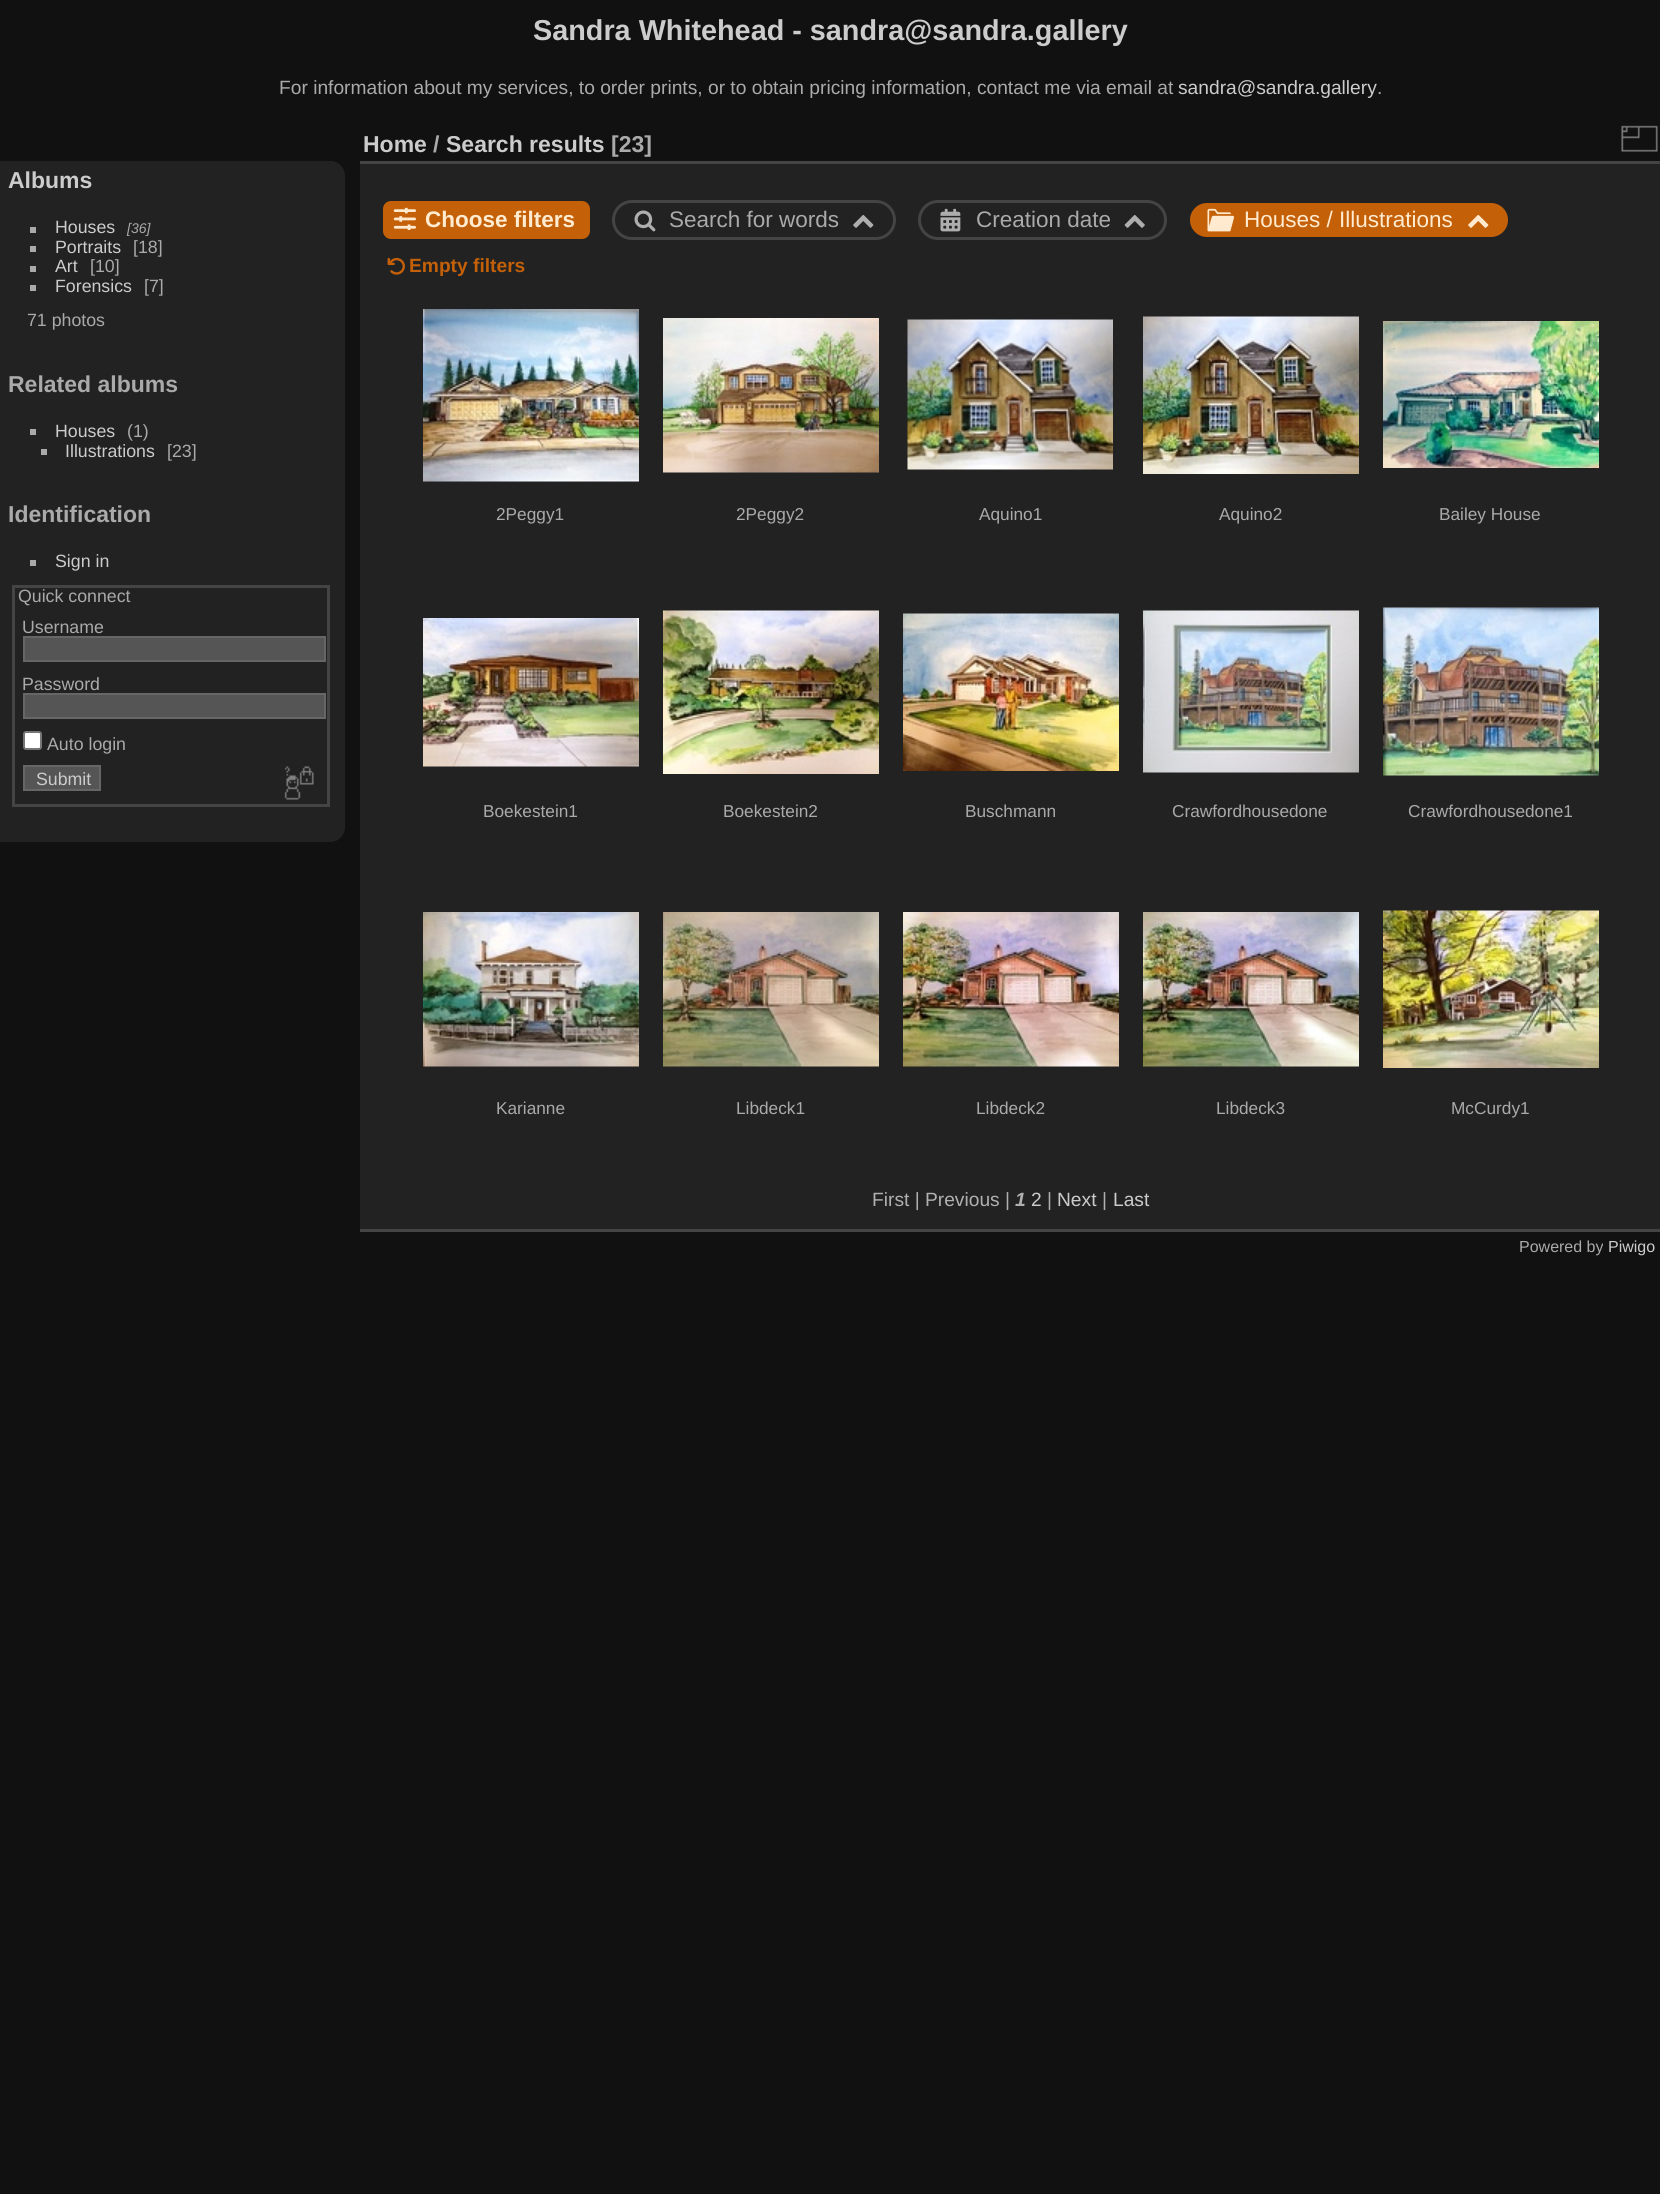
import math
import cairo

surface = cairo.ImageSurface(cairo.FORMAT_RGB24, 1660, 2194)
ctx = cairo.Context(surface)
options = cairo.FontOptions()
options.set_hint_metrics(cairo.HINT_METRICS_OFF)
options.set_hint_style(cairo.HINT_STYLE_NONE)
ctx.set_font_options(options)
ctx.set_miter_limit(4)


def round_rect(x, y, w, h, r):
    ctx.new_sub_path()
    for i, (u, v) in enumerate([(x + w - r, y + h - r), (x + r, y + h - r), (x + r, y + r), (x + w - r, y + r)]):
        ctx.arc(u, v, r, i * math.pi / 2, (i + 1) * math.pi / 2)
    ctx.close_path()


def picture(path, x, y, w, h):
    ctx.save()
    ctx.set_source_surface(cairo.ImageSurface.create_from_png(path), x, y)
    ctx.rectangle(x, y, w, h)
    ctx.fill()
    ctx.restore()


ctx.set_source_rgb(0.067, 0.067, 0.067)
ctx.paint()
ctx.select_font_face("Liberation Sans", cairo.FONT_SLANT_NORMAL, cairo.FONT_WEIGHT_BOLD)
ctx.set_font_size(28.8)
ctx.set_source_rgb(0.8, 0.8, 0.8)
ctx.move_to(533, 40)
ctx.show_text("Sandra Whitehead - sandra@sandra.gallery")
ctx.select_font_face("Liberation Sans")
ctx.set_font_size(19.2)
ctx.set_source_rgb(0.667, 0.667, 0.667)
ctx.move_to(279, 94)
ctx.show_text("For information about my services, to order prints, or to obtain pricing information, contact me via email at")
ctx.set_source_rgb(0.8, 0.8, 0.8)
ctx.move_to(1178, 94)
ctx.show_text("sandra@sandra.gallery")
ctx.set_source_rgb(0.667, 0.667, 0.667)
ctx.move_to(1377, 94)
ctx.show_text(".")
ctx.set_source_rgb(0.133, 0.133, 0.133)
ctx.new_path()
ctx.move_to(0, 161)
ctx.line_to(330, 161)
ctx.curve_to(338.5, 161, 345, 167.5, 345, 176)
ctx.line_to(345, 827)
ctx.curve_to(345, 835.5, 338.5, 842, 330, 842)
ctx.line_to(0, 842)
ctx.close_path()
ctx.fill()
ctx.select_font_face("Liberation Sans", cairo.FONT_SLANT_NORMAL, cairo.FONT_WEIGHT_BOLD)
ctx.set_font_size(23)
ctx.set_source_rgb(0.8, 0.8, 0.8)
ctx.move_to(8, 188)
ctx.show_text("Albums")
ctx.set_source_rgb(0.667, 0.667, 0.667)
ctx.rectangle(30, 227, 6, 6)
ctx.fill()
ctx.select_font_face("Liberation Sans")
ctx.set_font_size(17.75)
ctx.set_source_rgb(0.8, 0.8, 0.8)
ctx.move_to(55, 233)
ctx.show_text("Houses")
ctx.select_font_face("Liberation Sans", cairo.FONT_SLANT_ITALIC)
ctx.set_font_size(14)
ctx.set_source_rgb(0.667, 0.667, 0.667)
ctx.move_to(127, 233)
ctx.show_text("[36]")
ctx.rectangle(30, 246, 6, 6)
ctx.fill()
ctx.select_font_face("Liberation Sans")
ctx.set_font_size(17.75)
ctx.set_source_rgb(0.8, 0.8, 0.8)
ctx.move_to(55, 253)
ctx.show_text("Portraits")
ctx.set_source_rgb(0.667, 0.667, 0.667)
ctx.move_to(133, 253)
ctx.show_text("[18]")
ctx.rectangle(30, 266, 6, 6)
ctx.fill()
ctx.set_source_rgb(0.8, 0.8, 0.8)
ctx.move_to(55, 272)
ctx.show_text("Art")
ctx.set_source_rgb(0.667, 0.667, 0.667)
ctx.move_to(90, 272)
ctx.show_text("[10]")
ctx.rectangle(30, 285, 6, 6)
ctx.fill()
ctx.set_source_rgb(0.8, 0.8, 0.8)
ctx.move_to(55, 292)
ctx.show_text("Forensics")
ctx.set_source_rgb(0.667, 0.667, 0.667)
ctx.move_to(144, 292)
ctx.show_text("[7]")
ctx.move_to(27, 326)
ctx.show_text("71 photos")
ctx.select_font_face("Liberation Sans", cairo.FONT_SLANT_NORMAL, cairo.FONT_WEIGHT_BOLD)
ctx.set_font_size(23)
ctx.move_to(8, 392)
ctx.show_text("Related albums")
ctx.rectangle(30, 429, 6, 6)
ctx.fill()
ctx.select_font_face("Liberation Sans")
ctx.set_font_size(17.75)
ctx.set_source_rgb(0.8, 0.8, 0.8)
ctx.move_to(55, 437)
ctx.show_text("Houses")
ctx.set_source_rgb(0.667, 0.667, 0.667)
ctx.move_to(127, 437)
ctx.show_text("(1)")
ctx.rectangle(41, 449, 6, 6)
ctx.fill()
ctx.set_source_rgb(0.8, 0.8, 0.8)
ctx.move_to(65, 457)
ctx.show_text("Illustrations")
ctx.set_source_rgb(0.667, 0.667, 0.667)
ctx.move_to(167, 457)
ctx.show_text("[23]")
ctx.select_font_face("Liberation Sans", cairo.FONT_SLANT_NORMAL, cairo.FONT_WEIGHT_BOLD)
ctx.set_font_size(23)
ctx.move_to(8, 522)
ctx.show_text("Identification")
ctx.rectangle(30, 560, 6, 6)
ctx.fill()
ctx.select_font_face("Liberation Sans")
ctx.set_font_size(17.75)
ctx.set_source_rgb(0.8, 0.8, 0.8)
ctx.move_to(55, 567)
ctx.show_text("Sign in")
ctx.rectangle(13.5, 586.5, 315, 219)
ctx.set_source_rgb(0.267, 0.267, 0.267)
ctx.set_line_width(3)
ctx.stroke()
ctx.set_source_rgb(0.667, 0.667, 0.667)
ctx.move_to(18, 602)
ctx.show_text("Quick connect")
ctx.move_to(22, 633)
ctx.show_text("Username")
ctx.set_source_rgb(0.333, 0.333, 0.333)
ctx.rectangle(24, 637, 301, 24)
ctx.fill_preserve()
ctx.set_source_rgb(0.4, 0.4, 0.4)
ctx.set_line_width(2)
ctx.stroke()
ctx.set_source_rgb(0.667, 0.667, 0.667)
ctx.move_to(22, 690)
ctx.show_text("Password")
ctx.set_source_rgb(0.333, 0.333, 0.333)
ctx.rectangle(24, 694, 301, 24)
ctx.fill_preserve()
ctx.set_source_rgb(0.4, 0.4, 0.4)
ctx.stroke()
ctx.set_source_rgb(1, 1, 1)
round_rect(24, 732, 17, 17, 2)
ctx.fill_preserve()
ctx.set_source_rgb(0.463, 0.463, 0.463)
ctx.stroke()
ctx.set_source_rgb(0.667, 0.667, 0.667)
ctx.move_to(47, 750)
ctx.show_text("Auto login")
ctx.set_source_rgb(0.333, 0.333, 0.333)
ctx.rectangle(24, 766, 76, 24)
ctx.fill_preserve()
ctx.set_source_rgb(0.4, 0.4, 0.4)
ctx.stroke()
ctx.set_source_rgb(0.8, 0.8, 0.8)
ctx.move_to(36, 785)
ctx.show_text("Submit")
picture("img1.png", 284, 766, 30, 34)
ctx.set_source_rgb(0.133, 0.133, 0.133)
ctx.rectangle(360, 164, 1300, 1065)
ctx.fill()
ctx.set_source_rgb(0.267, 0.267, 0.267)
ctx.rectangle(360, 1229, 1300, 3)
ctx.fill()
ctx.rectangle(360, 161, 1300, 3)
ctx.fill()
ctx.select_font_face("Liberation Sans", cairo.FONT_SLANT_NORMAL, cairo.FONT_WEIGHT_BOLD)
ctx.set_font_size(23)
ctx.set_source_rgb(0.8, 0.8, 0.8)
ctx.move_to(363, 152)
ctx.show_text("Home")
ctx.set_source_rgb(0.667, 0.667, 0.667)
ctx.move_to(433, 152)
ctx.show_text("/")
ctx.set_source_rgb(0.8, 0.8, 0.8)
ctx.move_to(446, 152)
ctx.show_text("Search results")
ctx.set_source_rgb(0.667, 0.667, 0.667)
ctx.move_to(611, 152)
ctx.show_text("[23]")
picture("img2.png", 1621, 125, 37, 27)
ctx.set_source_rgb(0.769, 0.376, 0.035)
round_rect(383, 201, 207, 38, 8)
ctx.fill()
picture("img3.png", 393, 207, 23, 23)
ctx.set_font_size(22.5)
ctx.set_source_rgb(1, 0.918, 0.812)
ctx.move_to(425, 227)
ctx.show_text("Choose filters")
round_rect(613.5, 201.5, 281, 37, 18.5)
ctx.set_source_rgb(0.267, 0.267, 0.267)
ctx.set_line_width(3)
ctx.stroke()
picture("img4.png", 634, 210, 22, 22)
ctx.select_font_face("Liberation Sans")
ctx.set_source_rgb(0.667, 0.667, 0.667)
ctx.move_to(669, 227)
ctx.show_text("Search for words")
picture("img5.png", 853, 215, 21, 13)
round_rect(919.5, 201.5, 246, 37, 18.5)
ctx.set_source_rgb(0.267, 0.267, 0.267)
ctx.stroke()
picture("img6.png", 940, 208, 21, 24)
ctx.set_source_rgb(0.667, 0.667, 0.667)
ctx.move_to(976, 227)
ctx.show_text("Creation date")
picture("img7.png", 1124, 215, 21, 13)
ctx.set_source_rgb(0.769, 0.376, 0.035)
round_rect(1190, 203, 318, 34, 17)
ctx.fill()
picture("img8.png", 1207, 208, 28, 24)
ctx.set_source_rgb(1, 0.918, 0.812)
ctx.move_to(1244, 227)
ctx.show_text("Houses / Illustrations")
picture("img9.png", 1468, 215, 21, 13)
picture("img10.png", 387, 257, 18, 18)
ctx.select_font_face("Liberation Sans", cairo.FONT_SLANT_NORMAL, cairo.FONT_WEIGHT_BOLD)
ctx.set_font_size(19.2)
ctx.set_source_rgb(0.769, 0.376, 0.035)
ctx.move_to(409, 272)
ctx.show_text("Empty filters")
picture("img11.png", 423, 309, 216, 173)
ctx.select_font_face("Liberation Sans")
ctx.set_font_size(17.25)
ctx.set_source_rgb(0.667, 0.667, 0.667)
ctx.move_to(496, 520)
ctx.show_text("2Peggy1")
picture("img12.png", 663, 318, 216, 155)
ctx.move_to(736, 520)
ctx.show_text("2Peggy2")
picture("img13.png", 907, 319, 206, 151)
ctx.move_to(979, 520)
ctx.show_text("Aquino1")
picture("img14.png", 1143, 316, 216, 158)
ctx.move_to(1219, 520)
ctx.show_text("Aquino2")
picture("img15.png", 1383, 321, 216, 147)
ctx.move_to(1439, 520)
ctx.show_text("Bailey House")
picture("img16.png", 423, 618, 216, 149)
ctx.move_to(483, 817)
ctx.show_text("Boekestein1")
picture("img17.png", 663, 610, 216, 164)
ctx.move_to(723, 817)
ctx.show_text("Boekestein2")
picture("img18.png", 903, 613, 216, 158)
ctx.move_to(965, 817)
ctx.show_text("Buschmann")
picture("img19.png", 1143, 610, 216, 163)
ctx.move_to(1172, 817)
ctx.show_text("Crawfordhousedone")
picture("img20.png", 1383, 607, 216, 169)
ctx.move_to(1408, 817)
ctx.show_text("Crawfordhousedone1")
picture("img21.png", 423, 912, 216, 155)
ctx.move_to(496, 1114)
ctx.show_text("Karianne")
picture("img22.png", 663, 912, 216, 155)
ctx.move_to(736, 1114)
ctx.show_text("Libdeck1")
picture("img23.png", 903, 912, 216, 155)
ctx.move_to(976, 1114)
ctx.show_text("Libdeck2")
picture("img24.png", 1143, 912, 216, 155)
ctx.move_to(1216, 1114)
ctx.show_text("Libdeck3")
picture("img25.png", 1383, 910, 216, 158)
ctx.move_to(1451, 1114)
ctx.show_text("McCurdy1")
ctx.set_font_size(19.2)
ctx.set_source_rgb(0.69, 0.69, 0.69)
ctx.move_to(872, 1206)
ctx.show_text("First | Previous |")
ctx.select_font_face("Liberation Sans", cairo.FONT_SLANT_ITALIC, cairo.FONT_WEIGHT_BOLD)
ctx.move_to(1015, 1206)
ctx.show_text("1")
ctx.select_font_face("Liberation Sans")
ctx.set_source_rgb(0.8, 0.8, 0.8)
ctx.move_to(1031, 1206)
ctx.show_text("2")
ctx.set_source_rgb(0.69, 0.69, 0.69)
ctx.move_to(1047, 1206)
ctx.show_text("|")
ctx.set_source_rgb(0.8, 0.8, 0.8)
ctx.move_to(1057, 1206)
ctx.show_text("Next")
ctx.set_source_rgb(0.69, 0.69, 0.69)
ctx.move_to(1102, 1206)
ctx.show_text("|")
ctx.set_source_rgb(0.8, 0.8, 0.8)
ctx.move_to(1113, 1206)
ctx.show_text("Last")
ctx.set_font_size(16)
ctx.set_source_rgb(0.667, 0.667, 0.667)
ctx.move_to(1519, 1252)
ctx.show_text("Powered by")
ctx.set_source_rgb(0.8, 0.8, 0.8)
ctx.move_to(1608, 1252)
ctx.show_text("Piwigo")
surface.write_to_png("page.png")
